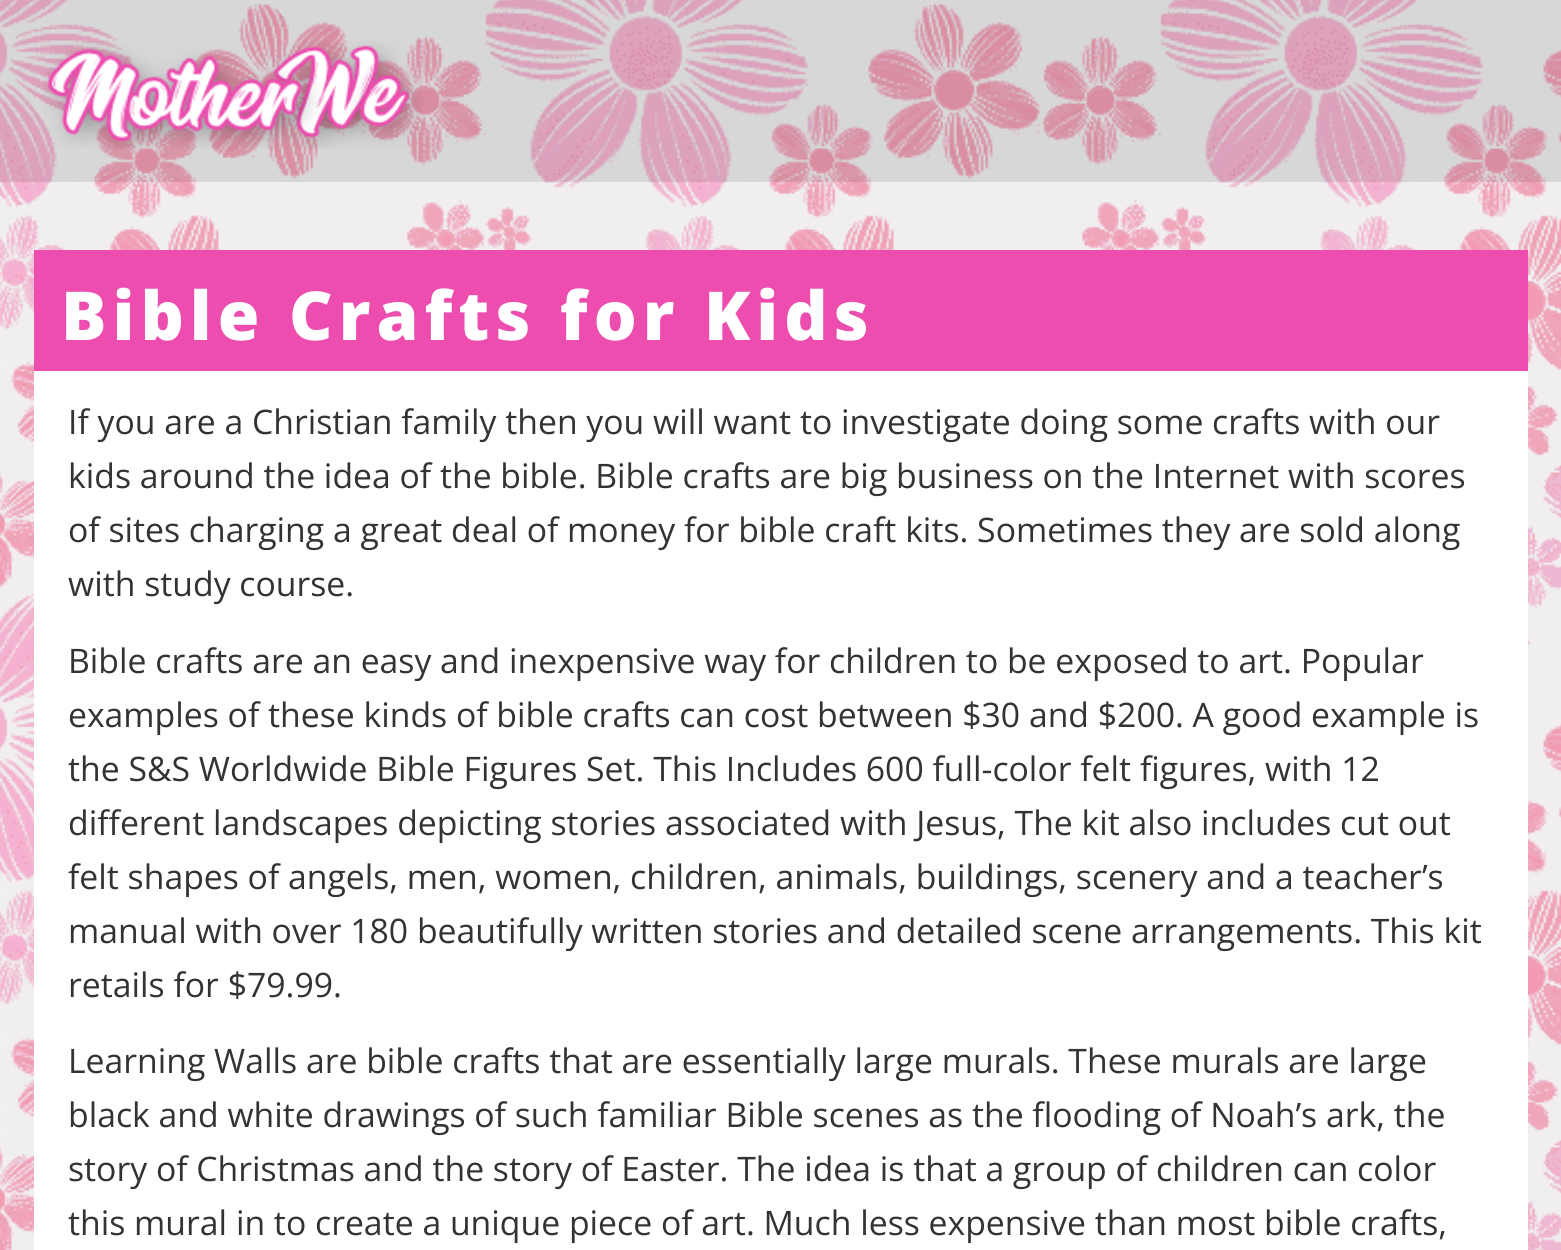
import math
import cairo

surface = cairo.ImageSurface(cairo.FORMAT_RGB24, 1561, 1250)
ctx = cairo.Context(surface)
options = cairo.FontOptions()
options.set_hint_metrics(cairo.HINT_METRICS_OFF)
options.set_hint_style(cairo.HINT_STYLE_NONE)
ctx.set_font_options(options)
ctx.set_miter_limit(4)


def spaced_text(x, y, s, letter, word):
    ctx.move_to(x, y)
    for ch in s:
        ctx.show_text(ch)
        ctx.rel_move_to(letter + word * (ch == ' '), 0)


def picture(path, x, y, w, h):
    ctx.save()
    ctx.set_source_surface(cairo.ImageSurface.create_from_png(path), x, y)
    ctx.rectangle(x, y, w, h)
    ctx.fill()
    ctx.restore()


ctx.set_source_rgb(1, 1, 1)
ctx.paint()
picture("img1.png", 0, 0, 1561, 1250)
ctx.set_source_rgba(0, 0, 0, 0.1)
ctx.rectangle(0, 0, 1561, 182)
ctx.fill()
picture("img2.png", 43, 41, 380, 108)
ctx.set_source_rgb(1, 1, 1)
ctx.rectangle(34, 371, 1494, 879)
ctx.fill()
ctx.set_source_rgb(0.922, 0.302, 0.686)
ctx.rectangle(34, 250, 1494, 121)
ctx.fill()
ctx.select_font_face("Open Sans ExtraBold")
ctx.set_font_size(67.5)
ctx.set_source_rgb(1, 1, 1)
spaced_text(61, 340, "Bible Crafts for Kids", 6, 0)
ctx.select_font_face("Open Sans")
ctx.set_font_size(33.75)
ctx.set_source_rgb(0.2, 0.2, 0.2)
ctx.move_to(68, 434)
ctx.show_text("If you are a Christian family then you will want to investigate doing some crafts with our")
ctx.move_to(68, 488)
ctx.show_text("kids around the idea of the bible. Bible crafts are big business on the Internet with scores")
ctx.move_to(68, 542)
ctx.show_text("of sites charging a great deal of money for bible craft kits. Sometimes they are sold along")
ctx.move_to(68, 596)
ctx.show_text("with study course.")
ctx.move_to(68, 673)
ctx.show_text("Bible crafts are an easy and inexpensive way for children to be exposed to art. Popular")
ctx.move_to(68, 727)
ctx.show_text("examples of these kinds of bible crafts can cost between $30 and $200. A good example is")
ctx.move_to(68, 781)
ctx.show_text("the S&S Worldwide Bible Figures Set. This Includes 600 full-color felt figures, with 12")
ctx.move_to(68, 835)
ctx.show_text("different landscapes depicting stories associated with Jesus, The kit also includes cut out")
ctx.move_to(68, 889)
ctx.show_text("felt shapes of angels, men, women, children, animals, buildings, scenery and a teacher’s")
ctx.move_to(68, 943)
ctx.show_text("manual with over 180 beautifully written stories and detailed scene arrangements. This kit")
ctx.move_to(68, 997)
ctx.show_text("retails for $79.99.")
ctx.move_to(68, 1073)
ctx.show_text("Learning Walls are bible crafts that are essentially large murals. These murals are large")
ctx.move_to(68, 1127)
ctx.show_text("black and white drawings of such familiar Bible scenes as the flooding of Noah’s ark, the")
ctx.move_to(68, 1181)
ctx.show_text("story of Christmas and the story of Easter. The idea is that a group of children can color")
ctx.move_to(68, 1235)
ctx.show_text("this mural in to create a unique piece of art. Much less expensive than most bible crafts,")
surface.write_to_png("page.png")
